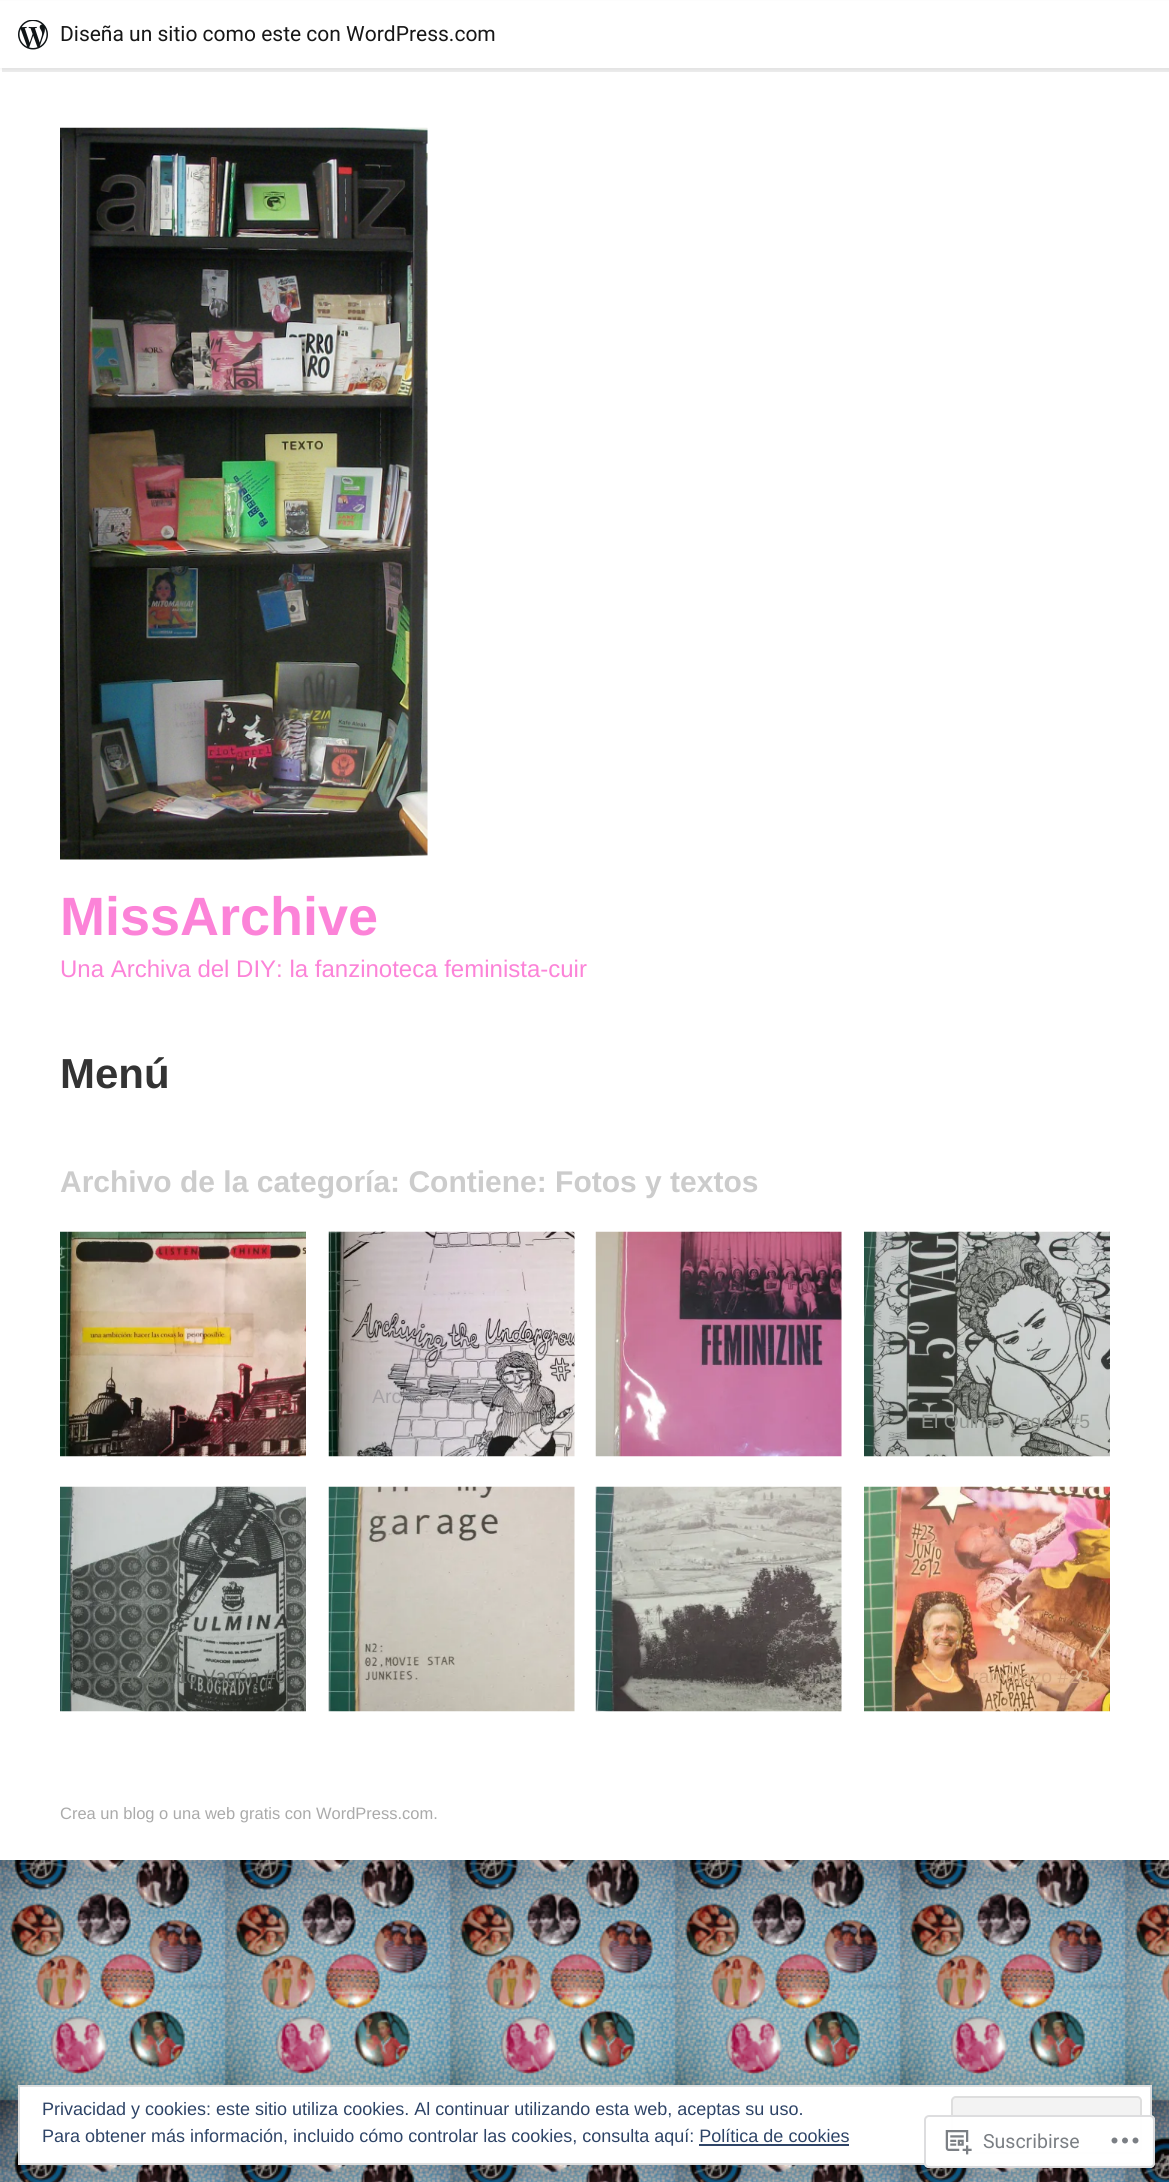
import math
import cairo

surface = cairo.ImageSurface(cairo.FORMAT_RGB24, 1169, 2182)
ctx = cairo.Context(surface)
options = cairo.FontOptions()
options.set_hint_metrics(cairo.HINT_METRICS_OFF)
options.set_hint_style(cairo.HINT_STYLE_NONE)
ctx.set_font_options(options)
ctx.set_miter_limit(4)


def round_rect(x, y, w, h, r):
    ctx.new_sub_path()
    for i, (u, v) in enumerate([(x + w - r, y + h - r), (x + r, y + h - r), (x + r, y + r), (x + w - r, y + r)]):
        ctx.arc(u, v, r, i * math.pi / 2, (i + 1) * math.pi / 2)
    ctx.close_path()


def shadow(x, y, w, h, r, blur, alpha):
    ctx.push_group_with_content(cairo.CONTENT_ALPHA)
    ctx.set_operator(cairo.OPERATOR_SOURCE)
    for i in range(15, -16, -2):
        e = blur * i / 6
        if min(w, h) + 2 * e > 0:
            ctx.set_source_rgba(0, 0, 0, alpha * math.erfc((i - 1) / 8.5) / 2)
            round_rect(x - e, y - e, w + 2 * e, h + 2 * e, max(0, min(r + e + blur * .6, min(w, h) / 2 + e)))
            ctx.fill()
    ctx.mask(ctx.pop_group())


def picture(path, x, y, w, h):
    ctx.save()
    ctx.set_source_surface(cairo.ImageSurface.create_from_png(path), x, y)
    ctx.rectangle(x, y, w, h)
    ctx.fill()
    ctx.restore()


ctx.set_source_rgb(1, 1, 1)
ctx.paint()
picture("img1.png", 0, 1860, 1169, 322)
ctx.set_source_rgb(0, 0, 0)
shadow(0, 2, 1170, 67, 0, 1.5, 0.05)
ctx.set_source_rgba(0, 0, 0, 0.08)
ctx.new_path()
ctx.move_to(2, 68)
ctx.line_to(2, 72)
ctx.line_to(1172, 72)
ctx.line_to(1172, 5)
ctx.line_to(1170, 5)
ctx.line_to(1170, 68)
ctx.close_path()
ctx.fill()
ctx.set_source_rgb(1, 1, 1)
ctx.rectangle(0, 1, 1169, 67)
ctx.fill()
picture("img2.png", 18, 20, 30, 30)
ctx.select_font_face("Roboto")
ctx.set_font_size(21)
ctx.set_source_rgb(0.09, 0.09, 0.09)
ctx.move_to(60, 41)
ctx.show_text("Diseña un sitio como este con WordPress.com")
picture("img3.png", 60, 127, 368, 733)
ctx.select_font_face("Liberation Sans", cairo.FONT_SLANT_NORMAL, cairo.FONT_WEIGHT_BOLD)
ctx.set_font_size(54)
ctx.set_source_rgb(0.988, 0.514, 0.847)
ctx.move_to(60, 935)
ctx.show_text("MissArchive")
ctx.select_font_face("Liberation Sans")
ctx.set_font_size(24)
ctx.move_to(60, 977)
ctx.show_text("Una Archiva del DIY: la fanzinoteca feminista-cuir")
ctx.select_font_face("Liberation Sans", cairo.FONT_SLANT_NORMAL, cairo.FONT_WEIGHT_BOLD)
ctx.set_font_size(42)
ctx.set_source_rgb(0.2, 0.2, 0.2)
ctx.move_to(60, 1088)
ctx.show_text("Menú")
ctx.set_font_size(30)
ctx.set_source_rgb(0.8, 0.8, 0.8)
ctx.move_to(60, 1192)
ctx.show_text("Archivo de la categoría: Contiene: Fotos y textos")
picture("img4.png", 328, 1231, 247, 226)
ctx.select_font_face("Liberation Sans")
ctx.set_font_size(19.5)
ctx.set_source_rgb(0.651, 0.635, 0.647)
ctx.move_to(372, 1403)
ctx.show_text("Arc")
picture("img5.png", 595, 1231, 247, 226)
picture("img6.png", 60, 1231, 246, 226)
ctx.set_source_rgb(0.38, 0.227, 0.227)
ctx.move_to(176, 1428)
ctx.show_text("P")
picture("img7.png", 864, 1231, 246, 226)
ctx.set_source_rgb(0.569, 0.584, 0.565)
ctx.move_to(921, 1428)
ctx.show_text("El Quinto Vagón #5")
picture("img8.png", 60, 1486, 246, 226)
ctx.set_source_rgb(0.404, 0.424, 0.404)
ctx.move_to(117, 1683)
ctx.show_text("El Quinto Vagón #0")
picture("img9.png", 328, 1486, 247, 226)
picture("img10.png", 595, 1486, 247, 226)
ctx.set_source_rgb(0.345, 0.325, 0.314)
ctx.move_to(812, 1683)
ctx.show_text("n")
picture("img11.png", 864, 1486, 246, 226)
ctx.set_source_rgb(0.835, 0.655, 0.51)
ctx.move_to(972, 1683)
ctx.show_text("ramalazo #23")
ctx.set_font_size(16.5)
ctx.set_source_rgb(0.667, 0.667, 0.667)
ctx.move_to(60, 1819)
ctx.show_text("Crea un blog o una web gratis con WordPress.com.")
ctx.set_source_rgb(1, 1, 1)
ctx.rectangle(19, 2086, 1132, 78)
ctx.fill_preserve()
ctx.set_source_rgb(0.871, 0.871, 0.871)
ctx.stroke()
ctx.set_font_size(18)
ctx.set_source_rgb(0.18, 0.267, 0.404)
ctx.move_to(42, 2115)
ctx.show_text("Privacidad y cookies: este sitio utiliza cookies. Al continuar utilizando esta web, aceptas su uso.")
ctx.set_source_rgb(0.953, 0.953, 0.953)
round_rect(951, 2096, 191, 58, 5)
ctx.fill()
ctx.set_source_rgb(0.976, 0.976, 0.976)
ctx.new_path()
ctx.move_to(956, 2098)
ctx.line_to(1137, 2098)
ctx.curve_to(1139, 2098, 1140, 2100, 1140, 2102)
ctx.line_to(1140, 2100)
ctx.curve_to(1140, 2098, 1139, 2097, 1137, 2097)
ctx.line_to(956, 2097)
ctx.curve_to(955, 2097, 953, 2098, 953, 2099)
ctx.close_path()
ctx.fill()
round_rect(952, 2097, 189, 56, 4)
ctx.set_source_rgb(0.871, 0.871, 0.871)
ctx.stroke()
ctx.set_source_rgb(0.18, 0.267, 0.404)
ctx.move_to(42, 2142)
ctx.show_text("Para obtener más información, incluido cómo controlar las cookies, consulta aquí: Política de cookies")
ctx.rectangle(699, 2144, 150, 2)
ctx.fill()
ctx.set_source_rgba(1, 1, 1, 0.98)
round_rect(924, 2115, 231, 53, 5)
ctx.fill()
round_rect(925, 2116, 229, 51, 4)
ctx.set_source_rgba(0.863, 0.863, 0.871, 0.98)
ctx.stroke()
picture("img12.png", 945, 2130, 27, 25)
ctx.select_font_face("Roboto")
ctx.set_font_size(19.5)
ctx.set_source_rgb(0.482, 0.498, 0.518)
ctx.move_to(983, 2148)
ctx.show_text("Suscribirse")
picture("img13.png", 1111, 2137, 28, 7)
surface.write_to_png("page.png")
